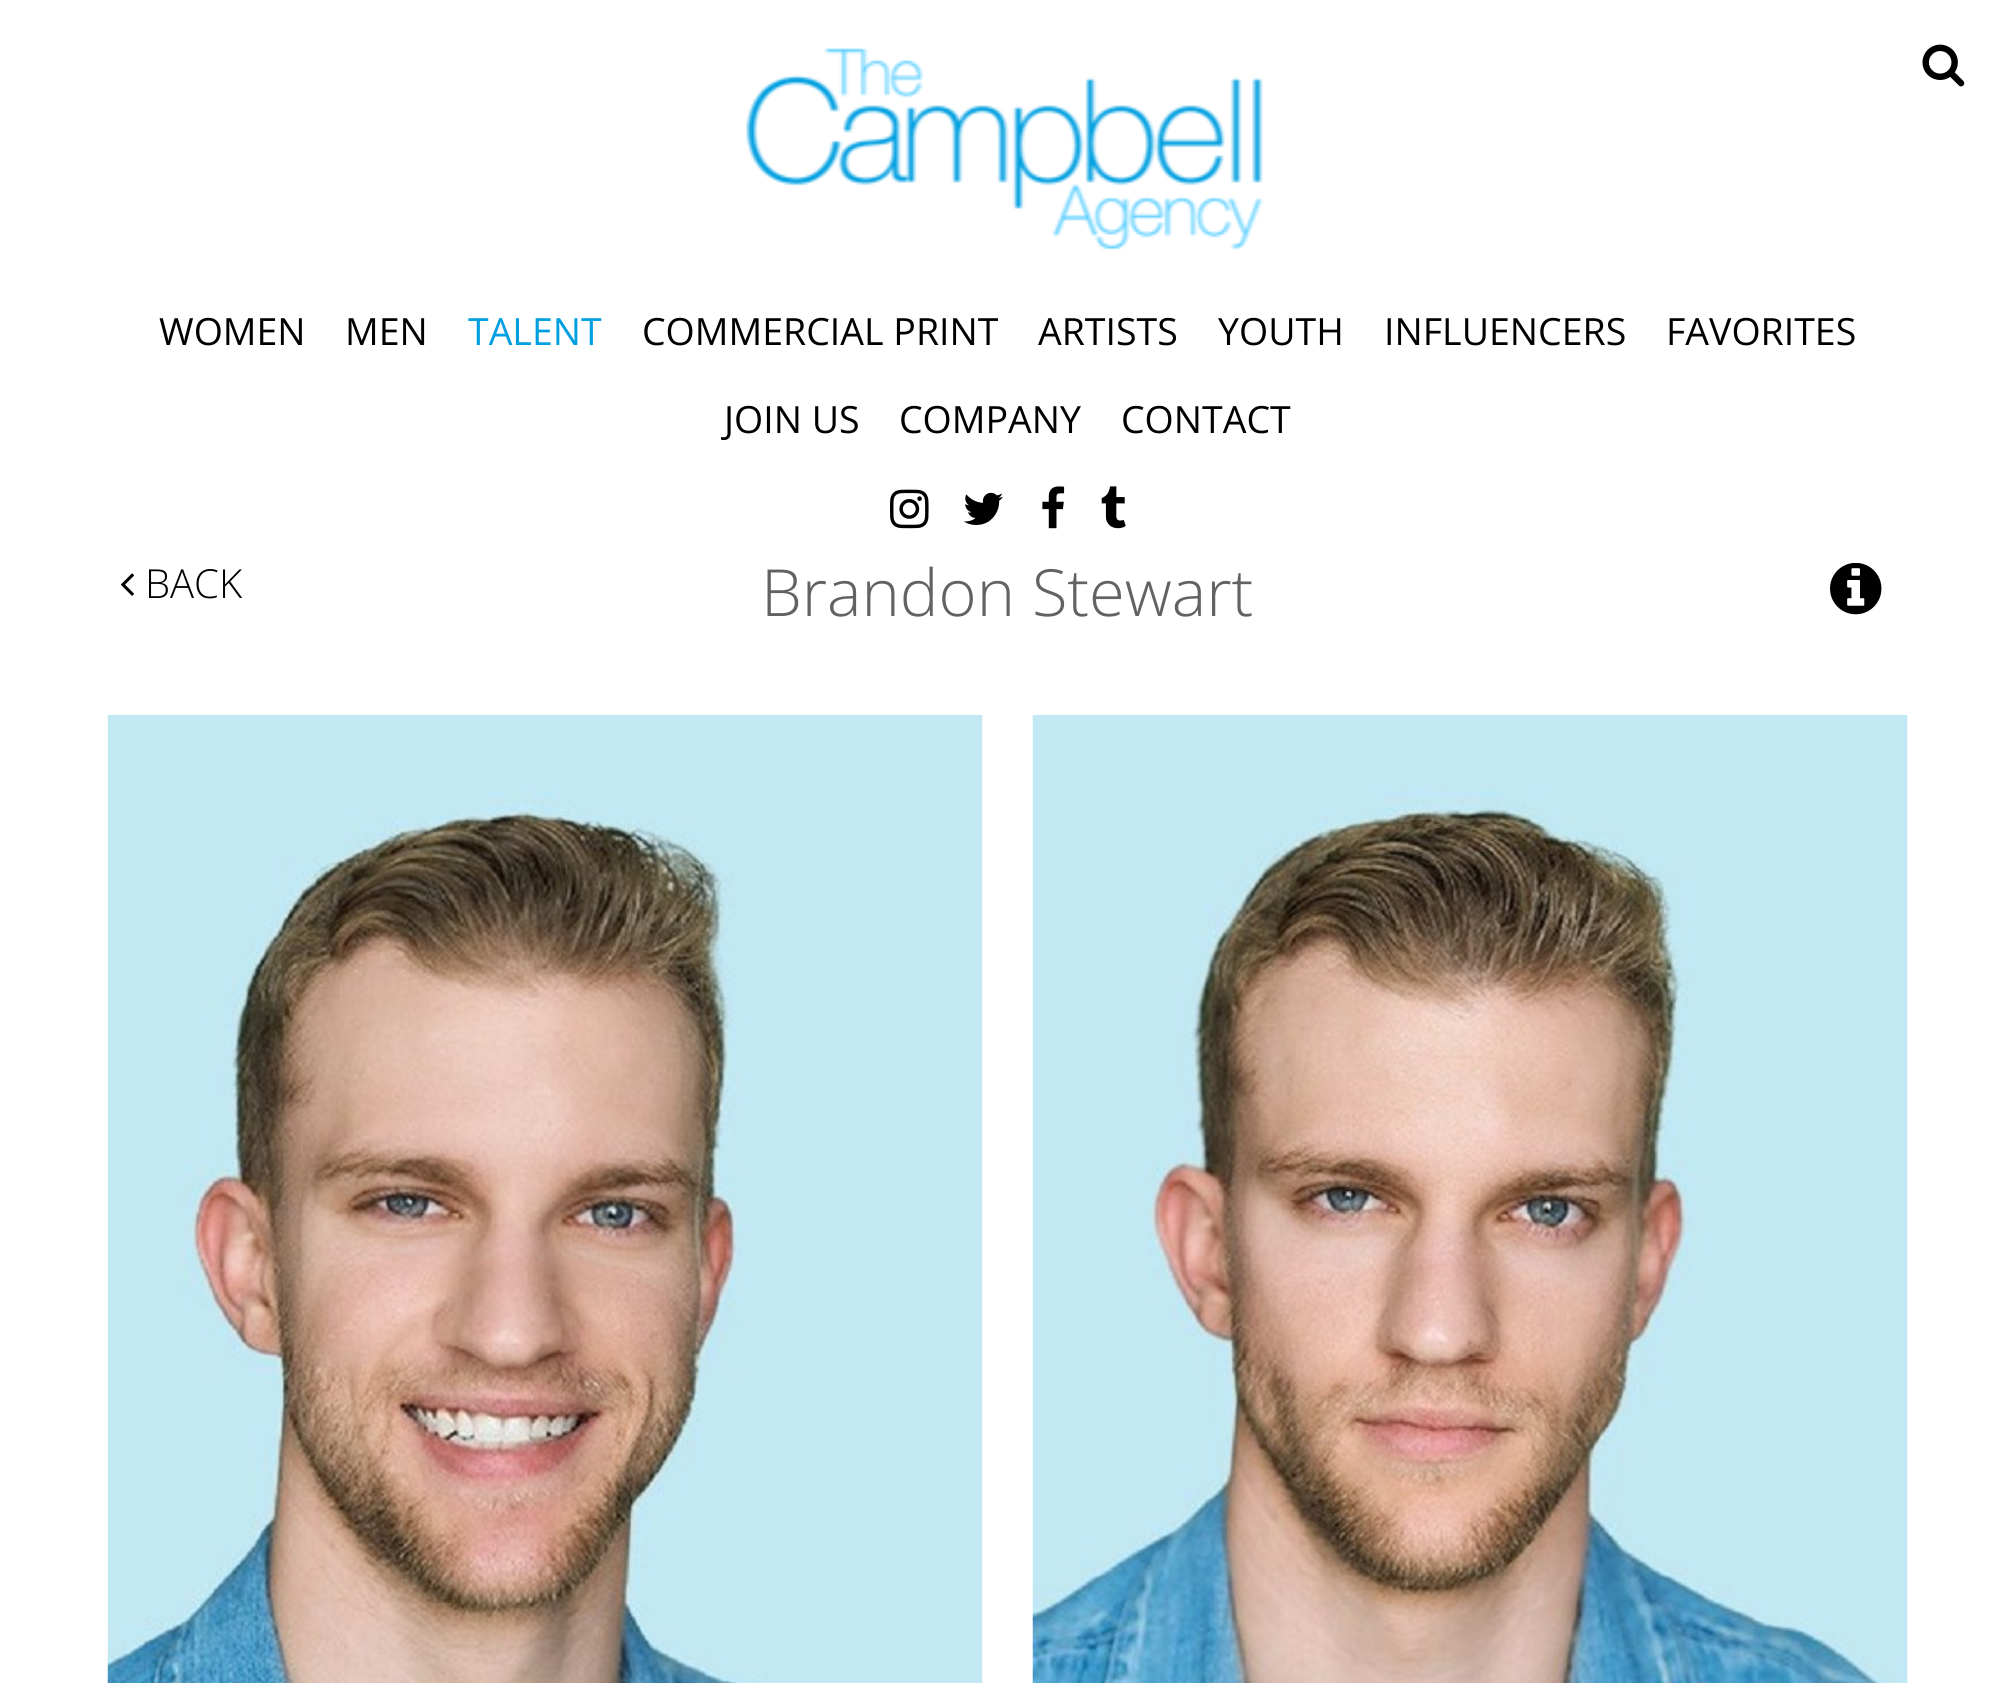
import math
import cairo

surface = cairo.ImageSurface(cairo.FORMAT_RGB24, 2014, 1683)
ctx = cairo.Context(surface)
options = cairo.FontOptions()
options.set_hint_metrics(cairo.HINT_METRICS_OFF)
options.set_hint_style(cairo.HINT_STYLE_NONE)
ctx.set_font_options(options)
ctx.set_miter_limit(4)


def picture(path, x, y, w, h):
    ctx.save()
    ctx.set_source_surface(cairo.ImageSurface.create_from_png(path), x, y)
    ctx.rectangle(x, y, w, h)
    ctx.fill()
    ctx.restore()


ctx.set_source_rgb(1, 1, 1)
ctx.paint()
picture("img1.png", 1922, 44, 43, 43)
picture("img2.png", 746, 48, 517, 202)
ctx.select_font_face("Open Sans")
ctx.set_font_size(37.5)
ctx.set_source_rgb(0, 0, 0)
ctx.move_to(159, 345)
ctx.show_text("WOMEN")
ctx.move_to(345, 345)
ctx.show_text("MEN")
ctx.set_source_rgb(0, 0.624, 0.878)
ctx.move_to(468, 345)
ctx.show_text("TALENT")
ctx.set_source_rgb(0, 0, 0)
ctx.move_to(642, 345)
ctx.show_text("COMMERCIAL PRINT")
ctx.move_to(1038, 345)
ctx.show_text("ARTISTS")
ctx.move_to(1218, 345)
ctx.show_text("YOUTH")
ctx.move_to(1384, 345)
ctx.show_text("INFLUENCERS")
ctx.move_to(1666, 345)
ctx.show_text("FAVORITES")
ctx.move_to(724, 433)
ctx.show_text("JOIN US")
ctx.move_to(899, 433)
ctx.show_text("COMPANY")
ctx.move_to(1121, 433)
ctx.show_text("CONTACT")
picture("img3.png", 890, 489, 39, 40)
picture("img4.png", 963, 492, 40, 33)
picture("img5.png", 1042, 486, 23, 43)
picture("img6.png", 1101, 486, 25, 43)
picture("img7.png", 121, 573, 13, 23)
ctx.select_font_face("Open Sans Light")
ctx.set_font_size(40)
ctx.move_to(145, 598)
ctx.show_text("BACK")
ctx.set_font_size(65)
ctx.set_source_rgb(0.384, 0.384, 0.392)
ctx.move_to(761, 616)
ctx.show_text("Brandon Stewart")
picture("img8.png", 1830, 563, 52, 52)
picture("img9.png", 107, 715, 876, 968)
picture("img10.png", 1032, 715, 876, 968)
surface.write_to_png("page.png")
